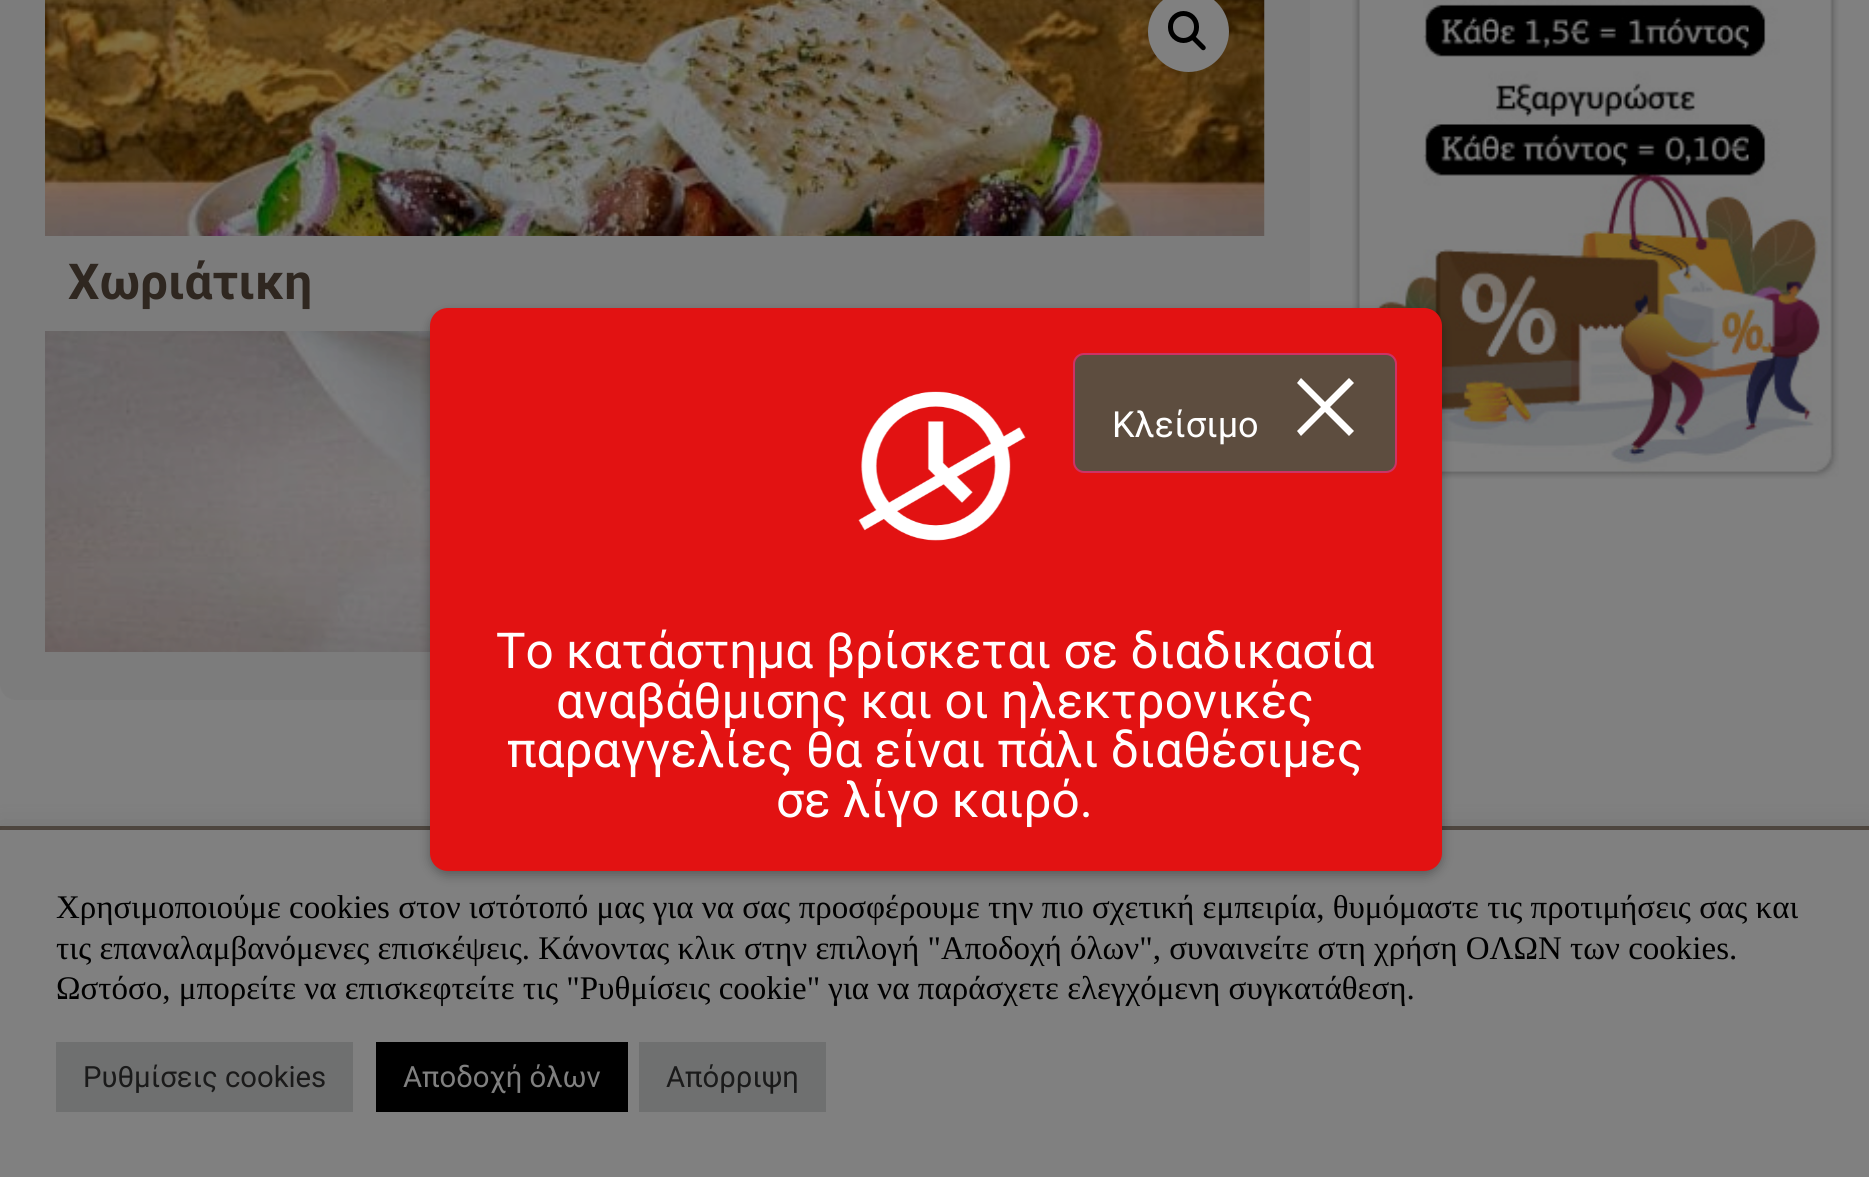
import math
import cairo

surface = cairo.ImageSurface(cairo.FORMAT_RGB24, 1869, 1177)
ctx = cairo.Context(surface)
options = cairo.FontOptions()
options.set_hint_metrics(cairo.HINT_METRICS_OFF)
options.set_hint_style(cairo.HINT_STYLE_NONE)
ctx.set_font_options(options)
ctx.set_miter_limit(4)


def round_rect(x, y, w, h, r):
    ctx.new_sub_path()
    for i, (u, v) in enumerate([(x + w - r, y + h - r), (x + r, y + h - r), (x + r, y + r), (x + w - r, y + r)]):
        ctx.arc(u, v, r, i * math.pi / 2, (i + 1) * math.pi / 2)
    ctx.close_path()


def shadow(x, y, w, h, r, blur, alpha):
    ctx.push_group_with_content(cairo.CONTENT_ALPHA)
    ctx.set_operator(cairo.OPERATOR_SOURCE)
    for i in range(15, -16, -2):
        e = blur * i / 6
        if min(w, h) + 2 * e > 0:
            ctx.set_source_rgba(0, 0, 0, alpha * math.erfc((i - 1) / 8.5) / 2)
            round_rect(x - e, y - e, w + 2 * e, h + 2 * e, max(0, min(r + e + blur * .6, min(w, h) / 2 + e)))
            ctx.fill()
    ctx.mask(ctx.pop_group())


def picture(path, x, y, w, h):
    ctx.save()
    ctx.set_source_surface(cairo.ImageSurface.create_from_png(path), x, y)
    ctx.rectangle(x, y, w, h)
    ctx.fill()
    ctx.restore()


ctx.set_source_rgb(0.502, 0.502, 0.502)
ctx.paint()
ctx.set_source_rgb(0.486, 0.486, 0.486)
round_rect(0, -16, 1310, 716, 16)
ctx.fill()
picture("img1.png", 45, 0, 1220, 652)
ctx.set_source_rgb(0.502, 0.502, 0.502)
ctx.arc(1188.5, 31.5, 40.5, 0, 2 * math.pi)
ctx.fill()
round_rect(1170.5, 13.5, 26, 27, 13)
ctx.set_source_rgb(0, 0, 0)
ctx.set_line_width(5)
ctx.stroke()
ctx.new_path()
ctx.move_to(1192, 36.5)
ctx.curve_to(1193, 36, 1194.5, 36, 1195.5, 36.5)
ctx.line_to(1205, 46)
ctx.curve_to(1206, 47, 1206, 48.5, 1205, 49.5)
ctx.curve_to(1204, 50.5, 1202.5, 50.5, 1201.5, 49.5)
ctx.line_to(1192, 40)
ctx.curve_to(1191.5, 39, 1191.5, 37.5, 1192, 36.5)
ctx.close_path()
ctx.fill()
ctx.set_source_rgb(0.486, 0.486, 0.486)
ctx.rectangle(45, 236, 1220, 95)
ctx.fill()
ctx.select_font_face("Roboto", cairo.FONT_SLANT_NORMAL, cairo.FONT_WEIGHT_BOLD)
ctx.set_font_size(49.5)
ctx.set_source_rgb(0.184, 0.153, 0.125)
ctx.move_to(68, 299)
ctx.show_text("Χωριάτικη")
picture("img2.png", 1352, 0, 487, 479)
ctx.set_source_rgb(0.298, 0.263, 0.231)
ctx.rectangle(0, 826, 1869, 4)
ctx.fill()
ctx.set_source_rgb(0.337, 0.337, 0.337)
shadow(0, 828, 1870, 349, 0, 11, 0.3)
ctx.set_source_rgb(0.502, 0.502, 0.502)
ctx.rectangle(0, 830, 1869, 347)
ctx.fill()
ctx.set_source_rgb(0, 0, 0)
shadow(430, 313, 1012, 562, 18, 5.5, 0.3)
ctx.set_source_rgb(0.886, 0.071, 0.071)
round_rect(430, 308, 1012, 563, 18)
ctx.fill()
ctx.set_source_rgb(0.365, 0.302, 0.247)
round_rect(1074, 354, 322, 118, 10)
ctx.fill_preserve()
ctx.set_source_rgb(0.8, 0.2, 0.4)
ctx.set_line_width(2)
ctx.stroke()
ctx.select_font_face("Roboto")
ctx.set_font_size(36)
ctx.set_source_rgb(1, 1, 1)
ctx.move_to(1112, 437)
ctx.show_text("Κλείσιμο")
ctx.new_path()
ctx.move_to(1325, 402)
ctx.line_to(1301, 378)
ctx.line_to(1297, 383)
ctx.line_to(1321, 407)
ctx.line_to(1297, 431)
ctx.line_to(1301, 436)
ctx.line_to(1325, 412)
ctx.line_to(1349, 436)
ctx.line_to(1354, 431)
ctx.line_to(1330, 407)
ctx.line_to(1354, 383)
ctx.line_to(1349, 378)
ctx.close_path()
ctx.fill()
picture("img3.png", 858, 391, 168, 150)
ctx.set_font_size(49.5)
ctx.move_to(496, 668)
ctx.show_text("Το κατάστημα βρίσκεται σε διαδικασία")
ctx.move_to(556, 718)
ctx.show_text("αναβάθμισης και οι ηλεκτρονικές")
ctx.move_to(507, 767)
ctx.show_text("παραγγελίες θα είναι πάλι διαθέσιμες")
ctx.move_to(776, 817)
ctx.show_text("σε λίγο καιρό.")
ctx.select_font_face("Liberation Serif")
ctx.set_font_size(33)
ctx.set_source_rgb(0, 0, 0)
ctx.move_to(56, 918)
ctx.show_text("Χρησιμοποιούμε cookies στον ιστότοπό μας για να σας προσφέρουμε την πιο σχετική εμπειρία, θυμόμαστε τις προτιμήσεις σας και")
ctx.move_to(56, 959)
ctx.show_text("τις επαναλαμβανόμενες επισκέψεις. Κάνοντας κλικ στην επιλογή \"Αποδοχή όλων\", συναινείτε στη χρήση ΟΛΩΝ των cookies.")
ctx.move_to(56, 999)
ctx.show_text("Ωστόσο, μπορείτε να επισκεφτείτε τις \"Ρυθμίσεις cookie\" για να παράσχετε ελεγχόμενη συγκατάθεση.")
ctx.set_source_rgb(0.435, 0.439, 0.439)
ctx.rectangle(56, 1042, 297, 70)
ctx.fill()
ctx.select_font_face("Roboto")
ctx.set_font_size(29.25)
ctx.set_source_rgb(0.102, 0.102, 0.102)
ctx.move_to(83, 1087)
ctx.show_text("Ρυθμίσεις cookies")
ctx.set_source_rgb(0, 0, 0)
ctx.rectangle(376, 1042, 252, 70)
ctx.fill()
ctx.set_source_rgb(0.502, 0.502, 0.502)
ctx.move_to(403, 1087)
ctx.show_text("Αποδοχή όλων")
ctx.set_source_rgb(0.435, 0.439, 0.439)
ctx.rectangle(639, 1042, 187, 70)
ctx.fill()
ctx.set_source_rgb(0.102, 0.102, 0.102)
ctx.move_to(666, 1087)
ctx.show_text("Απόρριψη")
surface.write_to_png("page.png")
